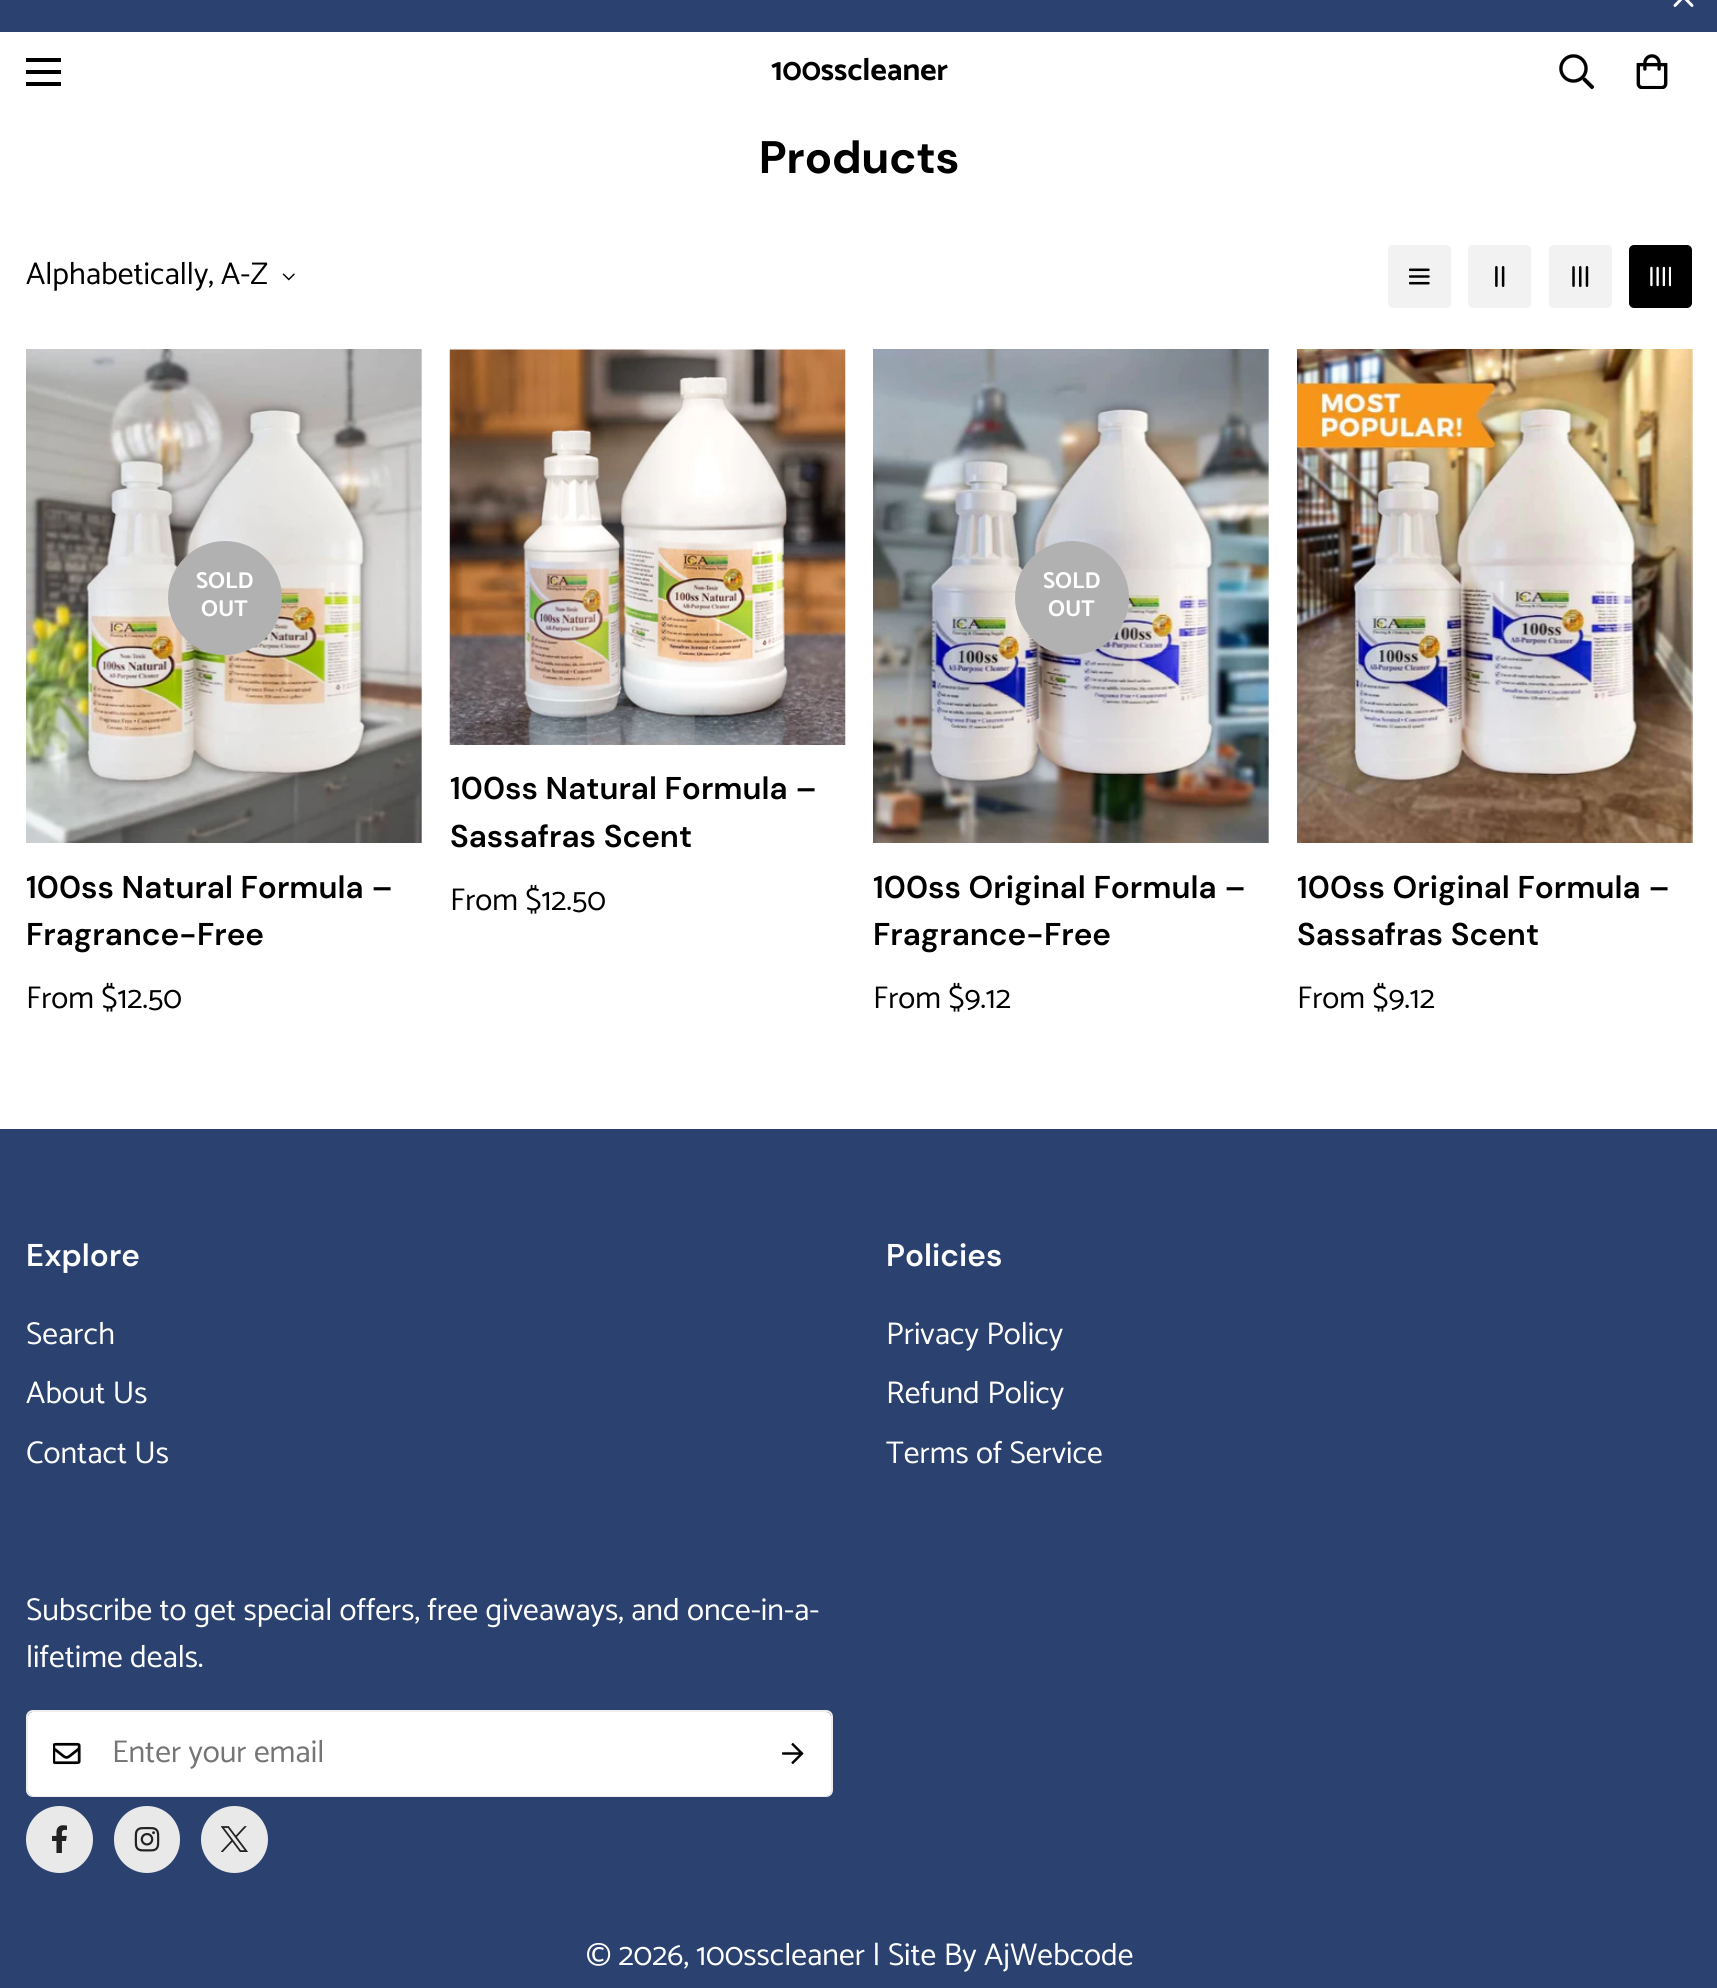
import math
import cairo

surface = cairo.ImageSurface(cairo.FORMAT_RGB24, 1717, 1988)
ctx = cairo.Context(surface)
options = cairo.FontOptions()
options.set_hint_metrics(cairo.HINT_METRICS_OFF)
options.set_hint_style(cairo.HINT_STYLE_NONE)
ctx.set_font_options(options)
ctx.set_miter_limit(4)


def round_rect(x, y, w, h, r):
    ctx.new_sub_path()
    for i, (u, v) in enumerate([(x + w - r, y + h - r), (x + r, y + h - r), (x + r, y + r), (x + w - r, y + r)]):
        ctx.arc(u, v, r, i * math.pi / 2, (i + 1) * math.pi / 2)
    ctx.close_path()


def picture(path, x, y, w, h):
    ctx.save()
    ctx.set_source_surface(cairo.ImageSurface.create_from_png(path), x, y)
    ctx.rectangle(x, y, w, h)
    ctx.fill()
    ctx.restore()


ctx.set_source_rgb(1, 1, 1)
ctx.paint()
ctx.set_source_rgb(0.169, 0.259, 0.439)
ctx.rectangle(0, 0, 1717, 32)
ctx.fill()
ctx.new_path()
ctx.move_to(1675, 5.5)
ctx.line_to(1692, -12)
ctx.move_to(1675, -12)
ctx.line_to(1692, 5.5)
ctx.set_source_rgb(1, 1, 1)
ctx.set_line_width(2.9)
ctx.set_line_cap(cairo.LINE_CAP_ROUND)
ctx.set_line_join(cairo.LINE_JOIN_ROUND)
ctx.stroke()
ctx.set_source_rgb(0, 0, 0)
ctx.rectangle(26, 70, 35, 4)
ctx.fill()
ctx.rectangle(26, 58, 35, 4)
ctx.fill()
ctx.rectangle(26, 82, 35, 4)
ctx.fill()
ctx.select_font_face("Catamaran", cairo.FONT_SLANT_NORMAL, cairo.FONT_WEIGHT_BOLD)
ctx.set_font_size(31.5)
ctx.move_to(771, 80)
ctx.show_text("100sscleaner")
picture("img1.png", 1559, 54, 35, 35)
picture("img2.png", 1636, 54, 32, 35)
ctx.select_font_face("DM Sans", cairo.FONT_SLANT_NORMAL, cairo.FONT_WEIGHT_BOLD)
ctx.set_font_size(45.5)
ctx.move_to(759, 173)
ctx.show_text("Products")
ctx.select_font_face("Catamaran")
ctx.set_font_size(31.5)
ctx.move_to(26, 284)
ctx.show_text("Alphabetically, A-Z")
picture("img3.png", 282, 273, 13, 8)
ctx.set_source_rgb(0.949, 0.949, 0.949)
round_rect(1388, 245, 63, 63, 5)
ctx.fill()
picture("img4.png", 1409, 268, 21, 17)
round_rect(1468, 245, 63, 63, 5)
ctx.fill()
picture("img5.png", 1495, 266, 10, 21)
round_rect(1549, 245, 63, 63, 5)
ctx.fill()
picture("img6.png", 1572, 266, 17, 21)
ctx.set_source_rgb(0, 0, 0)
round_rect(1629, 245, 63, 63, 5)
ctx.fill()
picture("img7.png", 1650, 266, 21, 21)
picture("img8.png", 26, 349, 396, 494)
ctx.set_source_rgb(0.694, 0.694, 0.694)
ctx.arc(225, 598, 57, 0, 2 * math.pi)
ctx.fill()
ctx.select_font_face("Catamaran", cairo.FONT_SLANT_NORMAL, cairo.FONT_WEIGHT_BOLD)
ctx.set_font_size(23)
ctx.set_source_rgb(1, 1, 1)
ctx.move_to(196, 588)
ctx.show_text("SOLD")
ctx.move_to(201, 616)
ctx.show_text("OUT")
ctx.select_font_face("DM Sans SemiBold")
ctx.set_font_size(31.5)
ctx.set_source_rgb(0, 0, 0)
ctx.move_to(26, 898)
ctx.show_text("100ss Natural Formula –")
ctx.move_to(26, 945)
ctx.show_text("Fragrance-Free")
ctx.select_font_face("Catamaran")
ctx.move_to(26, 1008)
ctx.show_text("From $12.50")
picture("img9.png", 449, 349, 397, 396)
ctx.select_font_face("DM Sans SemiBold")
ctx.move_to(450, 799)
ctx.show_text("100ss Natural Formula –")
ctx.move_to(450, 847)
ctx.show_text("Sassafras Scent")
ctx.select_font_face("Catamaran")
ctx.move_to(450, 910)
ctx.show_text("From $12.50")
picture("img10.png", 873, 349, 396, 494)
ctx.set_source_rgb(0.694, 0.694, 0.694)
ctx.arc(1072, 598, 57, 0, 2 * math.pi)
ctx.fill()
ctx.select_font_face("Catamaran", cairo.FONT_SLANT_NORMAL, cairo.FONT_WEIGHT_BOLD)
ctx.set_font_size(23)
ctx.set_source_rgb(1, 1, 1)
ctx.move_to(1043, 588)
ctx.show_text("SOLD")
ctx.move_to(1048, 616)
ctx.show_text("OUT")
ctx.select_font_face("DM Sans SemiBold")
ctx.set_font_size(31.5)
ctx.set_source_rgb(0, 0, 0)
ctx.move_to(873, 898)
ctx.show_text("100ss Original Formula –")
ctx.move_to(873, 945)
ctx.show_text("Fragrance-Free")
ctx.select_font_face("Catamaran")
ctx.move_to(873, 1008)
ctx.show_text("From $9.12")
picture("img11.png", 1297, 349, 396, 494)
ctx.select_font_face("DM Sans SemiBold")
ctx.move_to(1297, 898)
ctx.show_text("100ss Original Formula –")
ctx.move_to(1297, 945)
ctx.show_text("Sassafras Scent")
ctx.select_font_face("Catamaran")
ctx.move_to(1297, 1008)
ctx.show_text("From $9.12")
ctx.set_source_rgb(0.169, 0.259, 0.439)
ctx.rectangle(0, 1129, 1717, 859)
ctx.fill()
ctx.select_font_face("DM Sans SemiBold")
ctx.set_source_rgb(1, 1, 1)
ctx.move_to(26, 1266)
ctx.show_text("Explore")
ctx.select_font_face("Catamaran")
ctx.move_to(26, 1344)
ctx.show_text("Search")
ctx.move_to(26, 1403)
ctx.show_text("About Us")
ctx.move_to(26, 1463)
ctx.show_text("Contact Us")
ctx.select_font_face("DM Sans SemiBold")
ctx.move_to(886, 1266)
ctx.show_text("Policies")
ctx.select_font_face("Catamaran")
ctx.move_to(886, 1344)
ctx.show_text("Privacy Policy")
ctx.move_to(886, 1403)
ctx.show_text("Refund Policy")
ctx.move_to(886, 1463)
ctx.show_text("Terms of Service")
ctx.move_to(26, 1620)
ctx.show_text("Subscribe to get special offers, free giveaways, and once-in-a-")
ctx.move_to(26, 1667)
ctx.show_text("lifetime deals.")
ctx.new_path()
ctx.move_to(33, 1712)
ctx.line_to(754, 1712)
ctx.line_to(754, 1796)
ctx.line_to(33, 1796)
ctx.curve_to(30, 1796, 28, 1794, 28, 1791)
ctx.line_to(28, 1717)
ctx.curve_to(28, 1714, 30, 1712, 33, 1712)
ctx.close_path()
ctx.fill()
ctx.set_source_rgb(0.933, 0.933, 0.933)
ctx.set_fill_rule(cairo.FILL_RULE_EVEN_ODD)
ctx.new_path()
ctx.move_to(33, 1710)
ctx.line_to(754, 1710)
ctx.line_to(754, 1797)
ctx.line_to(33, 1797)
ctx.curve_to(29, 1797, 26, 1794, 26, 1790)
ctx.line_to(26, 1717)
ctx.curve_to(26, 1713, 29, 1710, 33, 1710)
ctx.close_path()
ctx.move_to(33, 1712)
ctx.line_to(754, 1712)
ctx.line_to(754, 1796)
ctx.line_to(33, 1796)
ctx.curve_to(30, 1796, 28, 1793, 28, 1790)
ctx.line_to(28, 1717)
ctx.curve_to(28, 1714, 30, 1712, 33, 1712)
ctx.close_path()
ctx.fill()
picture("img12.png", 53, 1742, 28, 23)
ctx.set_source_rgb(0.459, 0.459, 0.459)
ctx.move_to(112, 1762)
ctx.show_text("Enter your email")
ctx.set_source_rgb(1, 1, 1)
ctx.new_path()
ctx.move_to(754, 1712)
ctx.line_to(826, 1712)
ctx.curve_to(829, 1712, 831, 1714, 831, 1717)
ctx.line_to(831, 1791)
ctx.curve_to(831, 1794, 829, 1796, 826, 1796)
ctx.line_to(754, 1796)
ctx.close_path()
ctx.fill()
ctx.set_source_rgb(0.933, 0.933, 0.933)
ctx.new_path()
ctx.move_to(754, 1710)
ctx.line_to(826, 1710)
ctx.curve_to(830, 1710, 833, 1713, 833, 1717)
ctx.line_to(833, 1790)
ctx.curve_to(833, 1794, 830, 1797, 826, 1797)
ctx.line_to(754, 1797)
ctx.close_path()
ctx.move_to(754, 1712)
ctx.line_to(826, 1712)
ctx.curve_to(829, 1712, 831, 1714, 831, 1717)
ctx.line_to(831, 1790)
ctx.curve_to(831, 1793, 829, 1796, 826, 1796)
ctx.line_to(754, 1796)
ctx.close_path()
ctx.fill()
picture("img13.png", 782, 1743, 22, 21)
ctx.set_source_rgb(0.914, 0.914, 0.914)
ctx.arc(59.5, 1839.5, 33.5, 0, 2 * math.pi)
ctx.fill()
picture("img14.png", 52, 1825, 15, 28)
round_rect(114, 1806, 66, 67, 33)
ctx.fill()
picture("img15.png", 134, 1827, 26, 25)
ctx.arc(234.5, 1839.5, 33.5, 0, 2 * math.pi)
ctx.fill()
picture("img16.png", 221, 1826, 27, 26)
ctx.set_source_rgb(1, 1, 1)
ctx.move_to(586, 1965)
ctx.show_text("© 2026, 100sscleaner | Site By AjWebcode")
surface.write_to_png("page.png")
